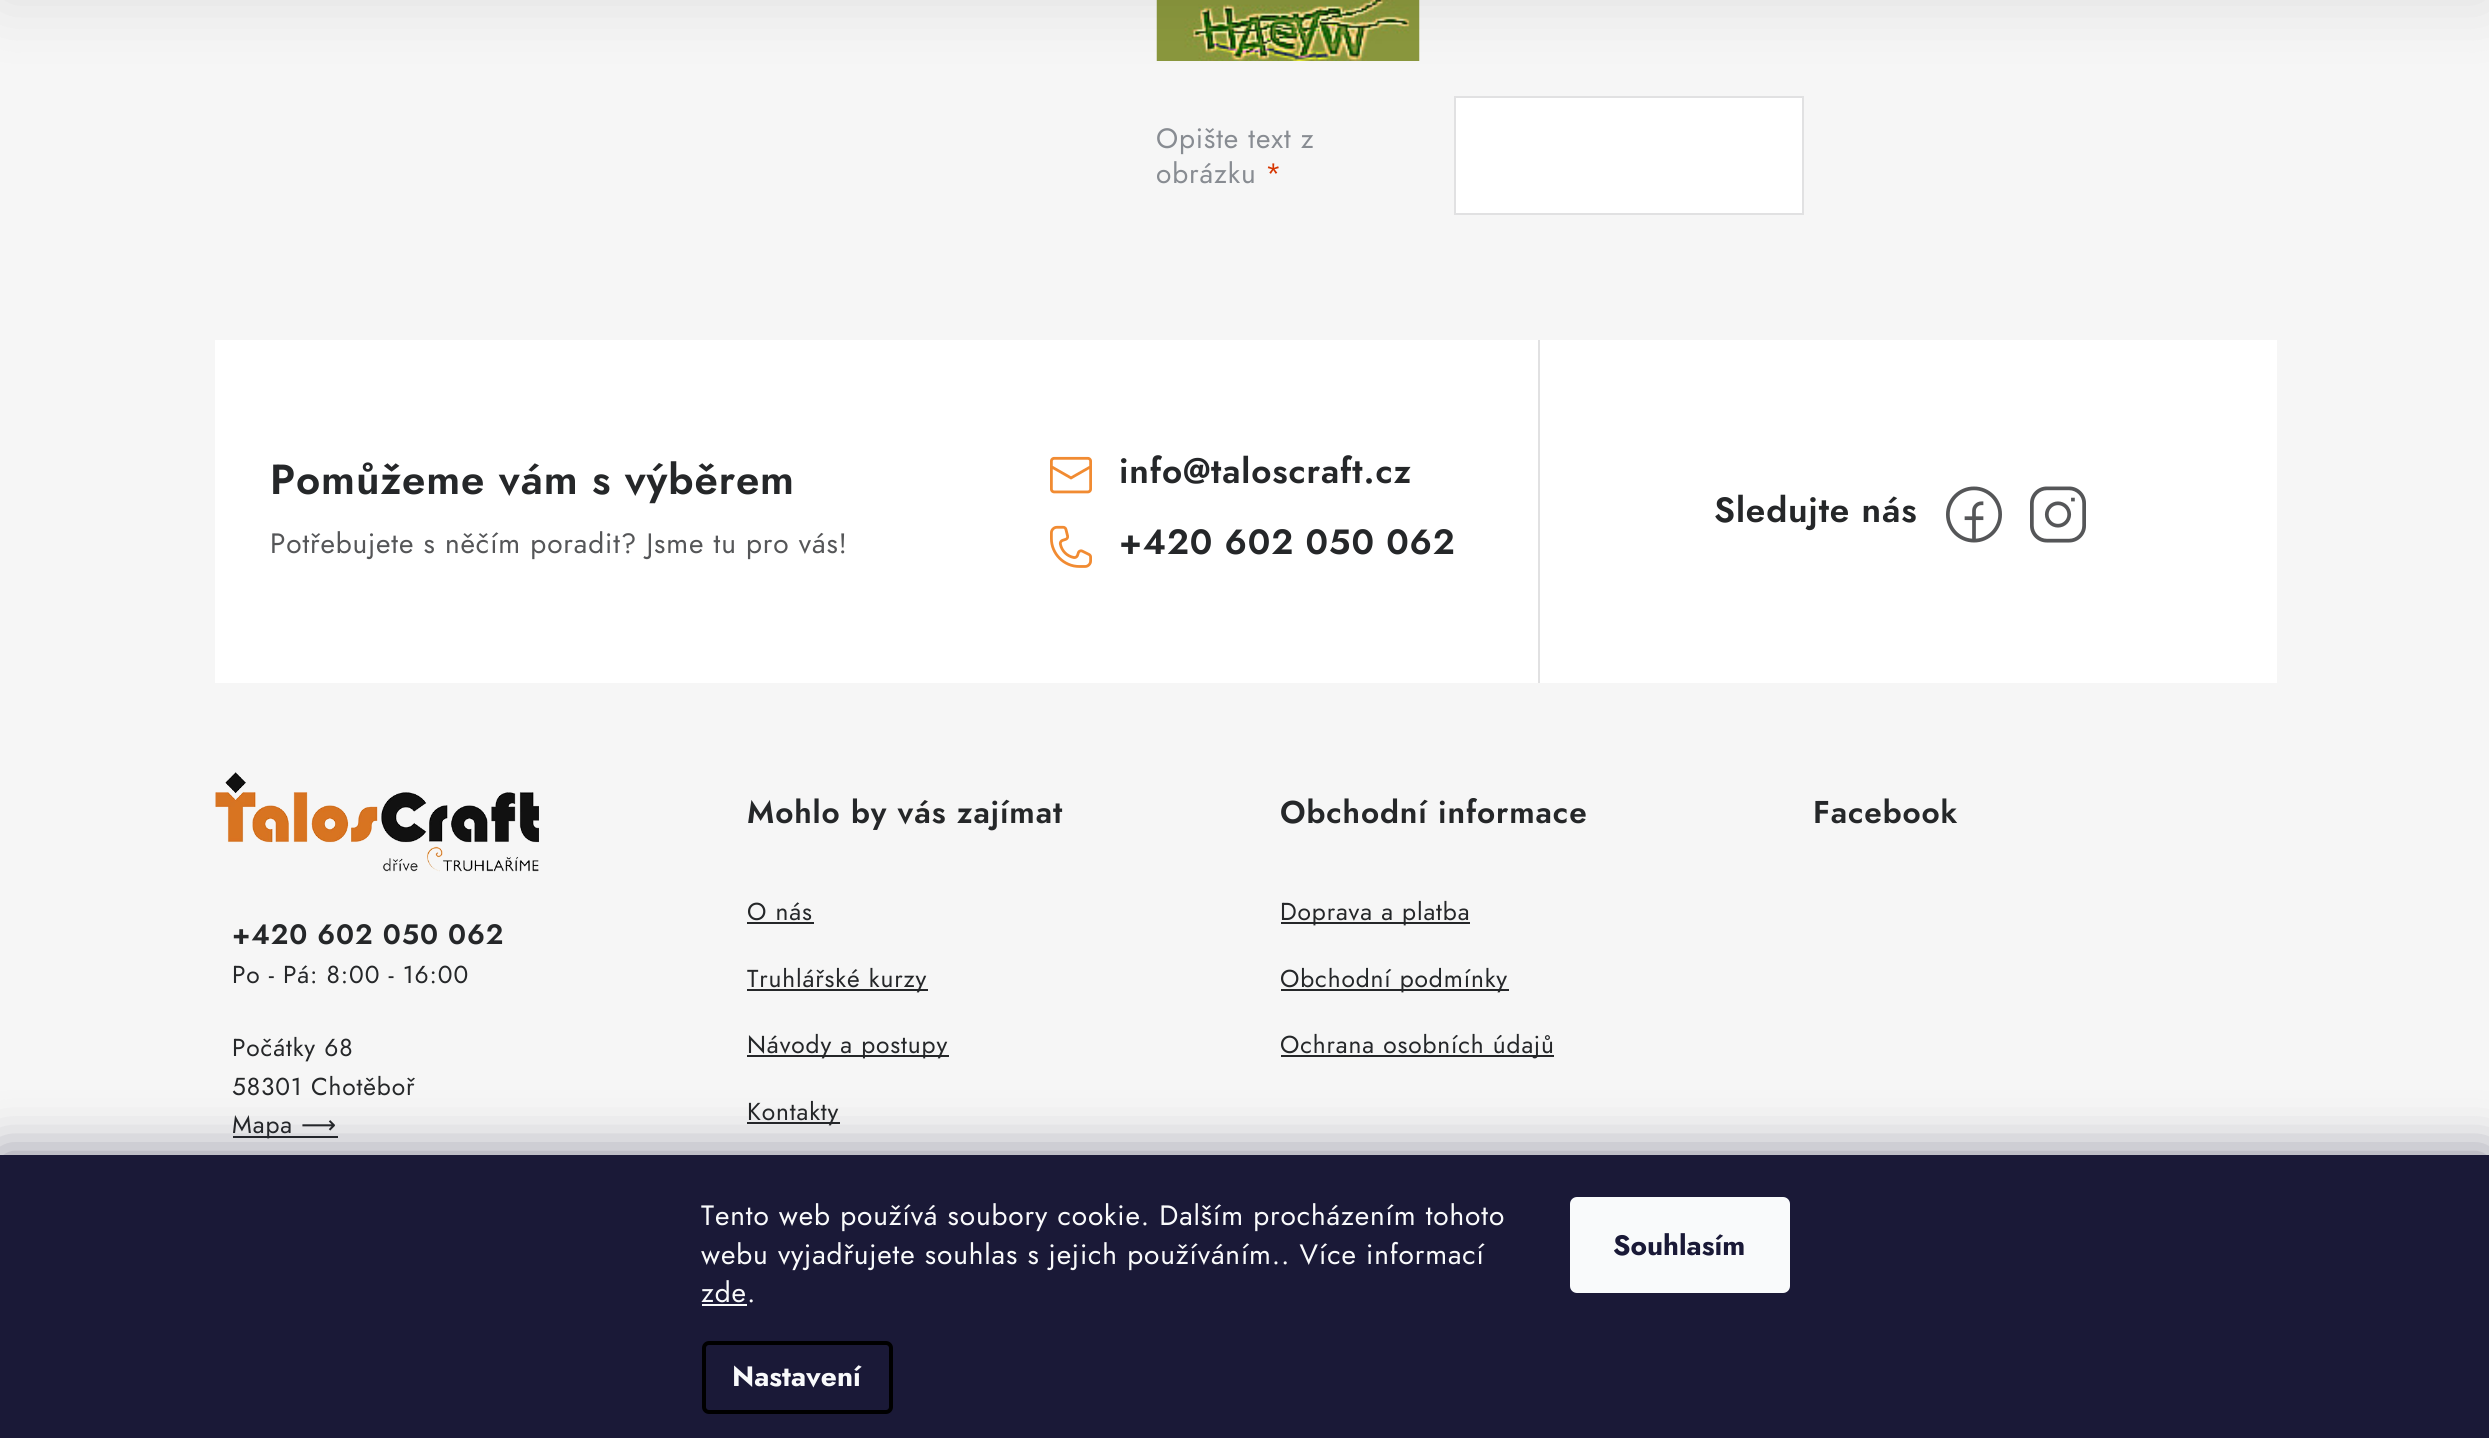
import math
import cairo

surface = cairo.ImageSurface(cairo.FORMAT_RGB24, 2489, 1438)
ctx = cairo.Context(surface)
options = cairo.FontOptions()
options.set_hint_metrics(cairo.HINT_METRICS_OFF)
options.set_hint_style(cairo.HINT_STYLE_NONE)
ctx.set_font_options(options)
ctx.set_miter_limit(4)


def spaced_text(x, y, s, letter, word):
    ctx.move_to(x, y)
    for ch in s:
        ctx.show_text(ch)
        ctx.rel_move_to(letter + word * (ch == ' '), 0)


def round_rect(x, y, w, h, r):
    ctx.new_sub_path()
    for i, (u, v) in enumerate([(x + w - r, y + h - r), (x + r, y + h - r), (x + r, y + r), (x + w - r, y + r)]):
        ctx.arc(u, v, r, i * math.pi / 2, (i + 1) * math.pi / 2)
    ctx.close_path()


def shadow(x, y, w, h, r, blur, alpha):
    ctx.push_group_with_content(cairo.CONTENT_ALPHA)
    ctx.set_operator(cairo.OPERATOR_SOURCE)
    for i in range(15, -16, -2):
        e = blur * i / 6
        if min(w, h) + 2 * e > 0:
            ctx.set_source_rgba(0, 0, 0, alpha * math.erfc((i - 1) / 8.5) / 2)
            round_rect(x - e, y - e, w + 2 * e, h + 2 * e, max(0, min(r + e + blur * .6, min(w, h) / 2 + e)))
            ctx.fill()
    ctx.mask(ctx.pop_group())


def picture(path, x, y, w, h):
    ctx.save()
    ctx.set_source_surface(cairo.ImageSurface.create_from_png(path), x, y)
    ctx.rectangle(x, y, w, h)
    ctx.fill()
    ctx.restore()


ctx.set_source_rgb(0.961, 0.961, 0.961)
ctx.paint()
picture("img1.png", 1156, 0, 264, 61)
ctx.set_source_rgb(1, 1, 1)
ctx.rectangle(1455, 97, 348, 117)
ctx.fill_preserve()
ctx.set_source_rgb(0.882, 0.882, 0.886)
ctx.stroke()
ctx.set_source_rgb(0, 0, 0)
shadow(0, -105, 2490, 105, 0, 35, 0.1)
ctx.select_font_face("Jost")
ctx.set_font_size(28)
ctx.set_source_rgb(0.533, 0.549, 0.573)
spaced_text(1156, 148, "Opište text z", 0.88, 0)
spaced_text(1156, 183, "obrázku", 0.88, 0)
ctx.set_source_rgb(0.839, 0.208, 0)
spaced_text(1265, 183, "*", 0.88, 0)
ctx.set_source_rgb(1, 1, 1)
ctx.rectangle(215, 340, 2062, 343)
ctx.fill()
ctx.select_font_face("Jost SemiBold")
ctx.set_font_size(42)
ctx.set_source_rgb(0.145, 0.153, 0.161)
spaced_text(270, 494, "Pomůžeme vám s výběrem", 0.88, 0)
ctx.select_font_face("Jost")
ctx.set_font_size(28)
ctx.set_source_rgb(0.333, 0.337, 0.345)
spaced_text(270, 553, "Potřebujete s něčím poradit? Jsme tu pro vás!", 0.88, 0)
picture("img2.png", 1050, 456, 42, 38)
ctx.select_font_face("Jost SemiBold")
ctx.set_font_size(35)
ctx.set_source_rgb(0.145, 0.153, 0.161)
spaced_text(1119, 483, "info@taloscraft.cz", 0.88, 0)
picture("img3.png", 1050, 525, 42, 43)
spaced_text(1119, 554, "+420 602 050 062", 0.88, 0)
ctx.set_source_rgb(0.882, 0.882, 0.886)
ctx.rectangle(1538, 340, 2, 343)
ctx.fill()
ctx.set_source_rgb(0.145, 0.153, 0.161)
spaced_text(1714, 522, "Sledujte nás", 0.88, 0)
picture("img4.png", 1946, 486, 56, 57)
picture("img5.png", 2030, 486, 56, 57)
ctx.set_font_size(31.5)
spaced_text(747, 823, "Mohlo by vás zajímat", 0.88, 0)
ctx.select_font_face("Jost")
ctx.set_font_size(24.5)
spaced_text(747, 920, "O nás", 0.88, 0)
ctx.rectangle(747, 922, 67, 2)
ctx.fill()
ctx.rectangle(747, 989, 181, 2)
ctx.fill()
spaced_text(747, 987, "Truhlářské kurzy", 0.88, 0)
ctx.rectangle(747, 1055, 202, 2)
ctx.fill()
spaced_text(747, 1053, "Návody a postupy", 0.88, 0)
ctx.rectangle(747, 1122, 93, 2)
ctx.fill()
spaced_text(747, 1120, "Kontakty", 0.88, 0)
ctx.select_font_face("Jost SemiBold")
ctx.set_font_size(31.5)
spaced_text(1280, 823, "Obchodní informace", 0.88, 0)
ctx.rectangle(1281, 922, 189, 2)
ctx.fill()
ctx.select_font_face("Jost")
ctx.set_font_size(24.5)
spaced_text(1280, 920, "Doprava a platba", 0.88, 0)
ctx.rectangle(1281, 989, 228, 2)
ctx.fill()
spaced_text(1280, 987, "Obchodní podmínky", 0.88, 0)
ctx.rectangle(1281, 1055, 273, 2)
ctx.fill()
spaced_text(1280, 1053, "Ochrana osobních údajů", 0.88, 0)
ctx.select_font_face("Jost SemiBold")
ctx.set_font_size(31.5)
spaced_text(1813, 823, "Facebook", 0.88, 0)
picture("img6.png", 215, 772, 324, 100)
ctx.set_font_size(28)
spaced_text(232, 944, "+420 602 050 062", 0.88, 0)
ctx.select_font_face("Jost")
ctx.set_font_size(24.5)
spaced_text(232, 983, "Po - Pá: 8:00 - 16:00", 0.88, 0)
spaced_text(232, 1056, "Počátky 68", 0.88, 0)
spaced_text(232, 1095, "58301 Chotěboř", 0.88, 0)
ctx.rectangle(233, 1136, 105, 2)
ctx.fill()
spaced_text(232, 1133, "Mapa", 0.88, 0)
ctx.select_font_face("DejaVu Sans")
spaced_text(301, 1133, "⟶", 0.88, 0)
ctx.set_source_rgb(0.106, 0.098, 0.224)
shadow(0, 1155, 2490, 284, 0, 26, 0.5)
ctx.set_source_rgb(0.102, 0.098, 0.216)
ctx.rectangle(0, 1155, 2489, 283)
ctx.fill()
ctx.select_font_face("Jost")
ctx.set_font_size(28)
ctx.set_source_rgb(0.973, 0.98, 0.984)
spaced_text(701, 1225, "Tento web používá soubory cookie. Dalším procházením tohoto", 0.88, 0)
spaced_text(701, 1264, "webu vyjadřujete souhlas s jejich používáním.. Více informací", 0.88, 0)
spaced_text(701, 1302, "zde.", 0.88, 0)
ctx.rectangle(702, 1304, 45, 2)
ctx.fill()
round_rect(704, 1343, 187, 69, 5)
ctx.set_source_rgb(0, 0, 0)
ctx.set_line_width(4)
ctx.stroke()
ctx.select_font_face("Jost", cairo.FONT_SLANT_NORMAL, cairo.FONT_WEIGHT_BOLD)
ctx.set_source_rgb(0.973, 0.98, 0.984)
ctx.move_to(732, 1386)
ctx.show_text("Nastavení")
round_rect(1570, 1197, 220, 96, 7)
ctx.fill()
ctx.set_source_rgb(0.102, 0.098, 0.216)
ctx.move_to(1613, 1255)
ctx.show_text("Souhlasím")
surface.write_to_png("page.png")
